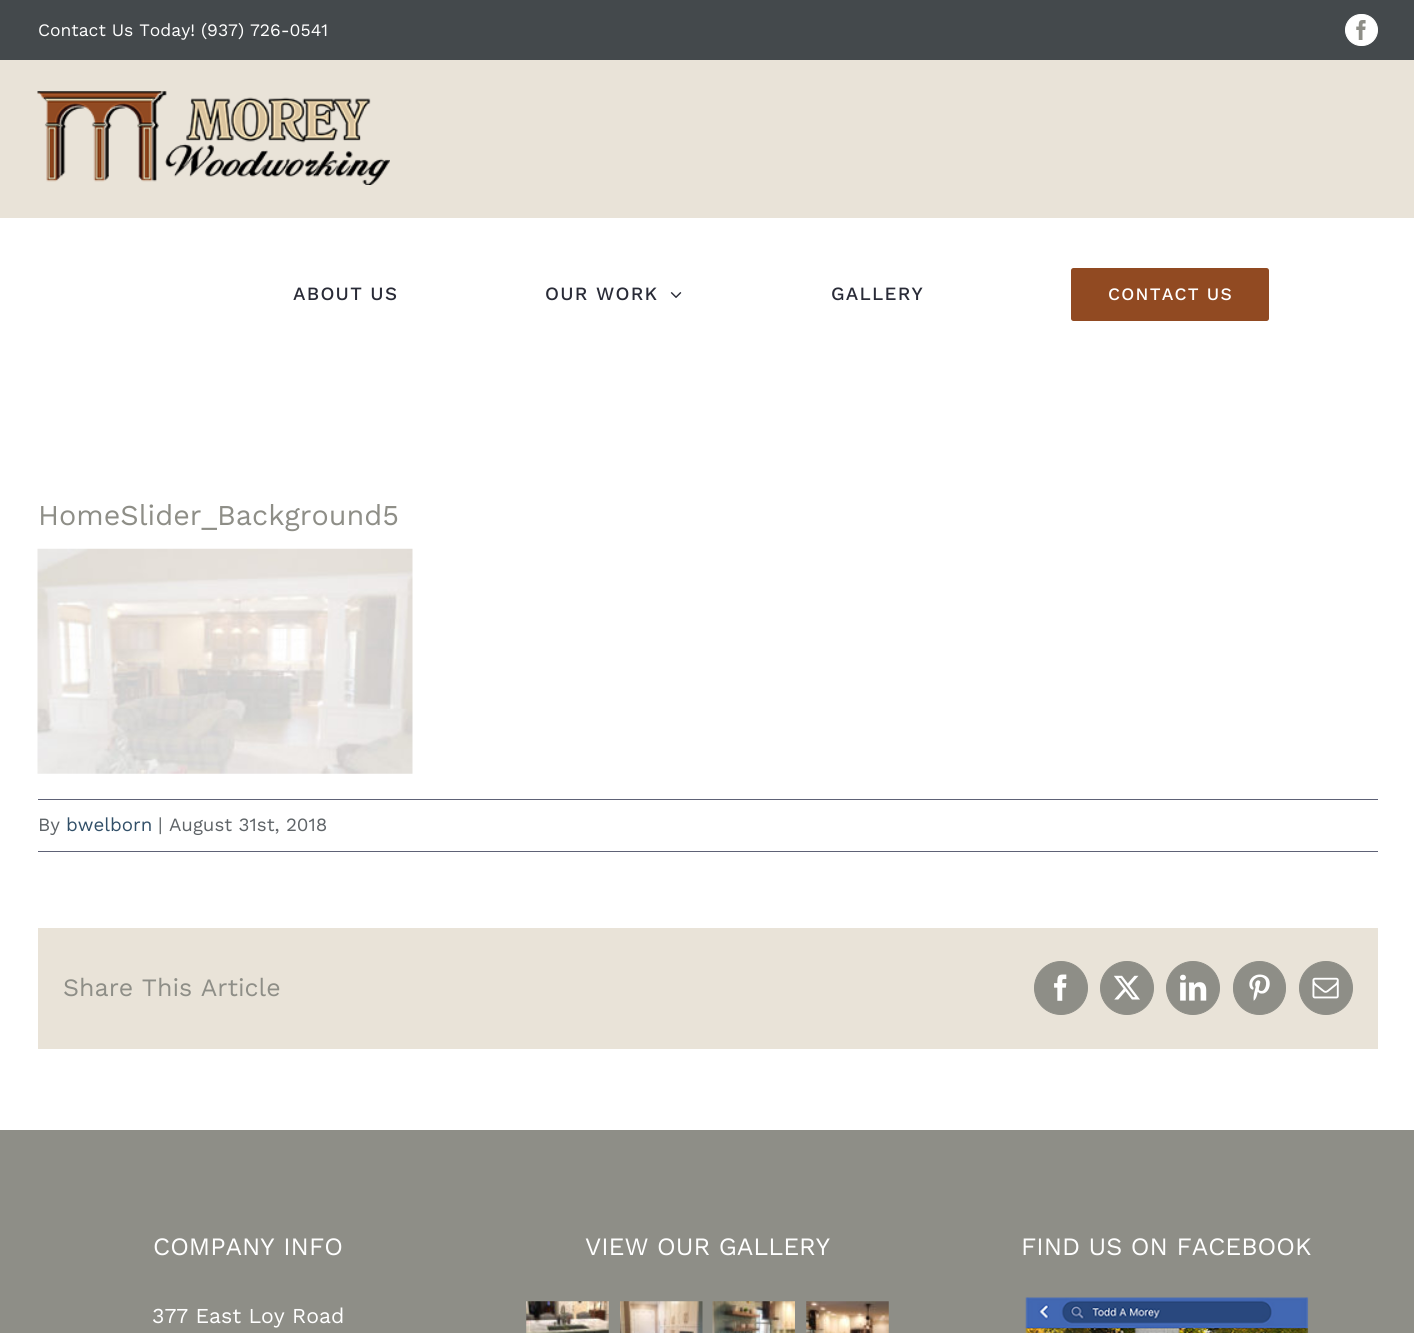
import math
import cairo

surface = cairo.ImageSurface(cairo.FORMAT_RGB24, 1414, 1333)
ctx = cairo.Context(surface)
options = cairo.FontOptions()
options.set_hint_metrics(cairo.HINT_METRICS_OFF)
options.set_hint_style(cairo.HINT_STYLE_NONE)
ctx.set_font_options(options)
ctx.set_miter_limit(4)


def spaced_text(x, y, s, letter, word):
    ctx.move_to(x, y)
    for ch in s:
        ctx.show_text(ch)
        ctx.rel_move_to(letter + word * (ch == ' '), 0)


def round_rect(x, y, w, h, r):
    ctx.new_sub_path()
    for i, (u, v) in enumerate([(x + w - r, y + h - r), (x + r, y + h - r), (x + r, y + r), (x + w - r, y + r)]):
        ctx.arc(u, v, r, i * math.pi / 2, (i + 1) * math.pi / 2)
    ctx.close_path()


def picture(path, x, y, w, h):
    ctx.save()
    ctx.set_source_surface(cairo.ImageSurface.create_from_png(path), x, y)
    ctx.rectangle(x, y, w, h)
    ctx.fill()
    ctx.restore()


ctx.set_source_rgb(1, 1, 1)
ctx.paint()
ctx.set_source_rgb(0.267, 0.286, 0.298)
ctx.rectangle(0, 0, 1414, 60)
ctx.fill()
ctx.select_font_face("Work Sans")
ctx.set_font_size(17.5)
ctx.set_source_rgb(1, 1, 1)
ctx.move_to(38, 36)
ctx.show_text("Contact Us Today! (937) 726-0541")
round_rect(1345.5, 14.5, 32, 31, 15.5)
ctx.fill_preserve()
ctx.set_line_width(1)
ctx.stroke()
picture("img1.png", 1356, 20, 10, 20)
ctx.set_source_rgb(0.914, 0.89, 0.847)
ctx.rectangle(0, 60, 1414, 158)
ctx.fill()
picture("img2.png", 37, 91, 353, 94)
ctx.select_font_face("Work Sans Medium")
ctx.set_font_size(18.75)
ctx.set_source_rgb(0.161, 0.169, 0.216)
spaced_text(293, 300, "ABOUT US", 1.25, 0)
spaced_text(545, 300, "OUR WORK", 1.25, 0)
picture("img3.png", 670, 292, 12, 6)
spaced_text(831, 300, "GALLERY", 1.25, 0)
ctx.set_source_rgb(0.569, 0.29, 0.133)
round_rect(1071, 268, 198, 53, 2.5)
ctx.fill()
ctx.set_font_size(17.5)
ctx.set_source_rgb(1, 1, 1)
spaced_text(1108, 300, "CONTACT US", 1.25, 0)
ctx.select_font_face("Work Sans")
ctx.set_font_size(28.75)
ctx.set_source_rgb(0.557, 0.557, 0.529)
ctx.move_to(38, 525)
ctx.show_text("HomeSlider_Background5")
picture("img4.png", 37, 548, 376, 226)
ctx.set_source_rgb(0.369, 0.384, 0.463)
ctx.rectangle(38, 799, 1340, 1)
ctx.fill()
ctx.rectangle(38, 851, 1340, 1)
ctx.fill()
ctx.set_font_size(18.75)
ctx.set_source_rgb(0.373, 0.392, 0.408)
ctx.move_to(38, 831)
ctx.show_text("By")
ctx.set_source_rgb(0.192, 0.31, 0.408)
ctx.move_to(66, 831)
ctx.show_text("bwelborn")
ctx.set_source_rgb(0.373, 0.392, 0.408)
ctx.move_to(158, 831)
ctx.show_text("| August 31st, 2018")
ctx.set_source_rgb(0.914, 0.89, 0.847)
ctx.rectangle(38, 928, 1340, 121)
ctx.fill()
ctx.set_font_size(25)
ctx.set_source_rgb(0.557, 0.557, 0.529)
ctx.move_to(63, 996)
ctx.show_text("Share This Article")
ctx.new_path()
ctx.arc(1061, 988, 26.5, 0, 2 * math.pi)
ctx.fill_preserve()
ctx.stroke()
picture("img5.png", 1054, 974, 13, 27)
ctx.arc(1127, 988, 26.5, 0, 2 * math.pi)
ctx.fill_preserve()
ctx.stroke()
picture("img6.png", 1114, 975, 26, 25)
ctx.arc(1193, 988, 26.5, 0, 2 * math.pi)
ctx.fill_preserve()
ctx.stroke()
picture("img7.png", 1180, 974, 27, 27)
round_rect(1233.5, 961.5, 52, 53, 26)
ctx.fill_preserve()
ctx.stroke()
picture("img8.png", 1249, 974, 21, 27)
ctx.arc(1326, 988, 26.5, 0, 2 * math.pi)
ctx.fill_preserve()
ctx.stroke()
picture("img9.png", 1312, 977, 27, 22)
ctx.rectangle(0, 1130, 1414, 203)
ctx.fill()
ctx.set_source_rgb(1, 1, 1)
ctx.move_to(153, 1255)
ctx.show_text("COMPANY INFO")
ctx.set_font_size(21.25)
ctx.move_to(152, 1323)
ctx.show_text("377 East Loy Road")
ctx.set_font_size(25)
ctx.move_to(585, 1255)
ctx.show_text("VIEW OUR GALLERY")
picture("img10.png", 526, 1301, 83, 32)
picture("img11.png", 620, 1301, 83, 32)
picture("img12.png", 712, 1301, 83, 32)
picture("img13.png", 806, 1301, 83, 32)
ctx.move_to(1021, 1255)
ctx.show_text("FIND US ON FACEBOOK")
picture("img14.png", 1025, 1297, 284, 36)
surface.write_to_png("page.png")
